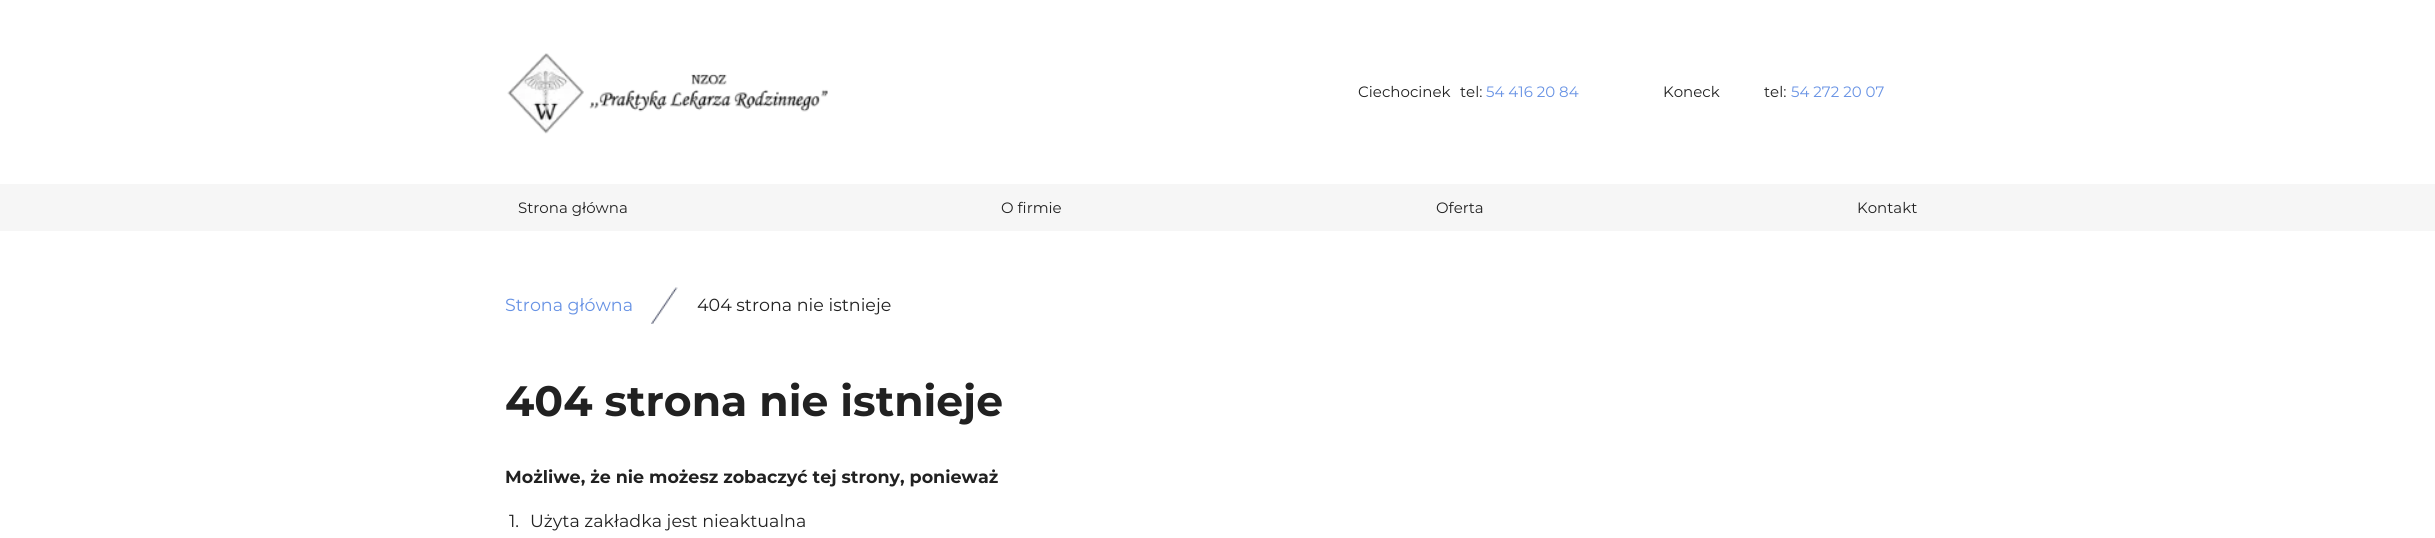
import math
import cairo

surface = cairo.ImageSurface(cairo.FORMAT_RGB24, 2435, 538)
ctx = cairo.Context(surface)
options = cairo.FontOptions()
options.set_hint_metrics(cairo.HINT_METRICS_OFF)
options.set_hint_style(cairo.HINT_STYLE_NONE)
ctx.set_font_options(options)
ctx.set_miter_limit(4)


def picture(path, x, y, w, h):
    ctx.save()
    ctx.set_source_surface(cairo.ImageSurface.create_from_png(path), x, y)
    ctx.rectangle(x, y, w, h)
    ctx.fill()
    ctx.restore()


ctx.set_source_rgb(1, 1, 1)
ctx.paint()
picture("img1.png", 507, 53, 321, 81)
ctx.select_font_face("Montserrat")
ctx.set_font_size(15)
ctx.set_source_rgb(0.129, 0.129, 0.129)
ctx.move_to(1358, 97)
ctx.show_text("Ciechocinek")
ctx.move_to(1460, 97)
ctx.show_text("tel:")
ctx.set_source_rgb(0.404, 0.573, 0.894)
ctx.move_to(1486, 97)
ctx.show_text("54 416 20 84")
ctx.set_source_rgb(0.129, 0.129, 0.129)
ctx.move_to(1663, 97)
ctx.show_text("Koneck")
ctx.move_to(1764, 97)
ctx.show_text("tel:")
ctx.set_source_rgb(0.404, 0.573, 0.894)
ctx.move_to(1791, 97)
ctx.show_text("54 272 20 07")
ctx.set_source_rgb(0.961, 0.961, 0.961)
ctx.rectangle(0, 184, 2435, 47)
ctx.fill()
ctx.set_source_rgb(0.129, 0.129, 0.129)
ctx.move_to(518, 213)
ctx.show_text("Strona główna")
ctx.move_to(1001, 213)
ctx.show_text("O firmie")
ctx.move_to(1436, 213)
ctx.show_text("Oferta")
ctx.move_to(1857, 213)
ctx.show_text("Kontakt")
ctx.set_font_size(17.5)
ctx.set_source_rgb(0.404, 0.573, 0.894)
ctx.move_to(505, 311)
ctx.show_text("Strona główna")
picture("img2.png", 651, 287, 27, 37)
ctx.set_source_rgb(0.129, 0.129, 0.129)
ctx.move_to(697, 311)
ctx.show_text("404 strona nie istnieje")
ctx.select_font_face("Montserrat", cairo.FONT_SLANT_NORMAL, cairo.FONT_WEIGHT_BOLD)
ctx.set_font_size(42.5)
ctx.move_to(505, 416)
ctx.show_text("404 strona nie istnieje")
ctx.set_font_size(17.5)
ctx.move_to(505, 483)
ctx.show_text("Możliwe, że nie możesz zobaczyć tej strony, ponieważ")
ctx.select_font_face("Montserrat")
ctx.move_to(509, 527)
ctx.show_text("1.")
ctx.move_to(530, 527)
ctx.show_text("Użyta zakładka jest nieaktualna")
surface.write_to_png("page.png")
